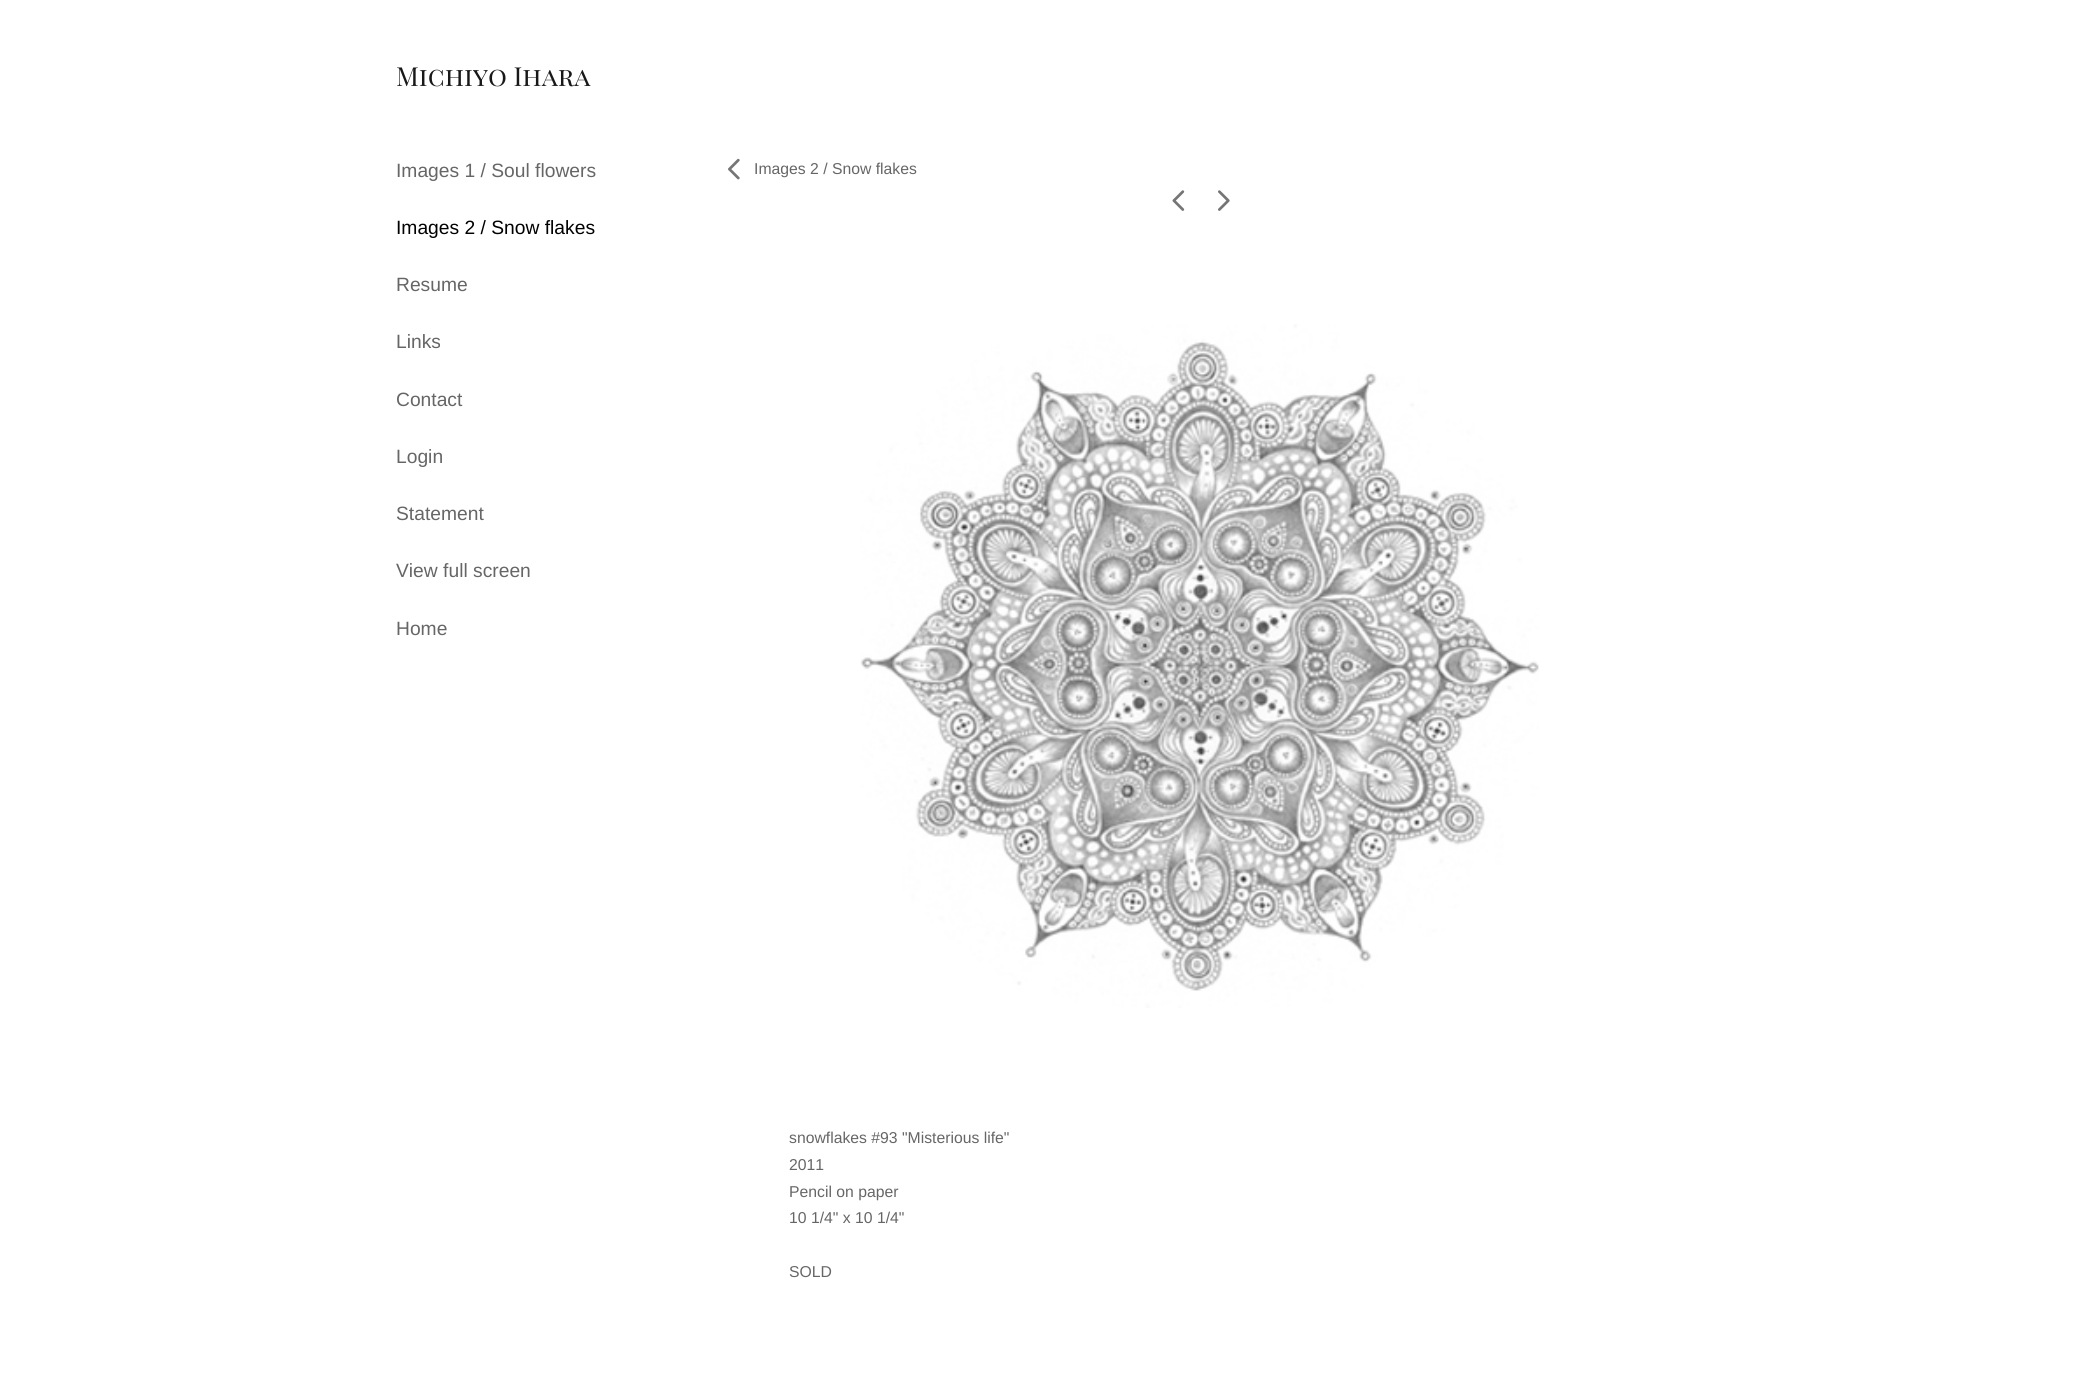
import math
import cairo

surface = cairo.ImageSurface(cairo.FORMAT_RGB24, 2094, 1386)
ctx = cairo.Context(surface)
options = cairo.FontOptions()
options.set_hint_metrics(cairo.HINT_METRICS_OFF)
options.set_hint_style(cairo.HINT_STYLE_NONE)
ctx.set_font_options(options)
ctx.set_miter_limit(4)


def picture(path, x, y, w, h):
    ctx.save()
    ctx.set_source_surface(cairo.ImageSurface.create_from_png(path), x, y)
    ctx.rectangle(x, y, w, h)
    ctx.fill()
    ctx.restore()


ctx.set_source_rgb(1, 1, 1)
ctx.paint()
ctx.select_font_face("Playfair Display SC")
ctx.set_font_size(26.25)
ctx.set_source_rgb(0.094, 0.094, 0.094)
ctx.move_to(396, 86)
ctx.show_text("Michiyo Ihara")
ctx.select_font_face("Liberation Sans")
ctx.set_font_size(19.25)
ctx.set_source_rgb(0.4, 0.4, 0.4)
ctx.move_to(396, 177)
ctx.show_text("Images 1 / Soul flowers")
ctx.set_source_rgb(0, 0, 0)
ctx.move_to(396, 234)
ctx.show_text("Images 2 / Snow flakes")
ctx.set_source_rgb(0.4, 0.4, 0.4)
ctx.move_to(396, 291)
ctx.show_text("Resume")
ctx.move_to(396, 348)
ctx.show_text("Links")
ctx.move_to(396, 406)
ctx.show_text("Contact")
ctx.move_to(396, 463)
ctx.show_text("Login")
ctx.move_to(396, 520)
ctx.show_text("Statement")
ctx.move_to(396, 577)
ctx.show_text("View full screen")
ctx.move_to(396, 635)
ctx.show_text("Home")
picture("img1.png", 728, 158, 12, 22)
ctx.set_font_size(15.75)
ctx.move_to(754, 174)
ctx.show_text("Images 2 / Snow flakes")
picture("img2.png", 1172, 190, 13, 21)
picture("img3.png", 1218, 190, 12, 21)
picture("img4.png", 860, 324, 679, 684)
ctx.move_to(789, 1143)
ctx.show_text("snowflakes #93 \"Misterious life\"")
ctx.move_to(789, 1170)
ctx.show_text("2011")
ctx.move_to(789, 1197)
ctx.show_text("Pencil on paper")
ctx.move_to(789, 1223)
ctx.show_text("10 1/4\" x 10 1/4\"")
ctx.move_to(789, 1277)
ctx.show_text("SOLD")
surface.write_to_png("page.png")
